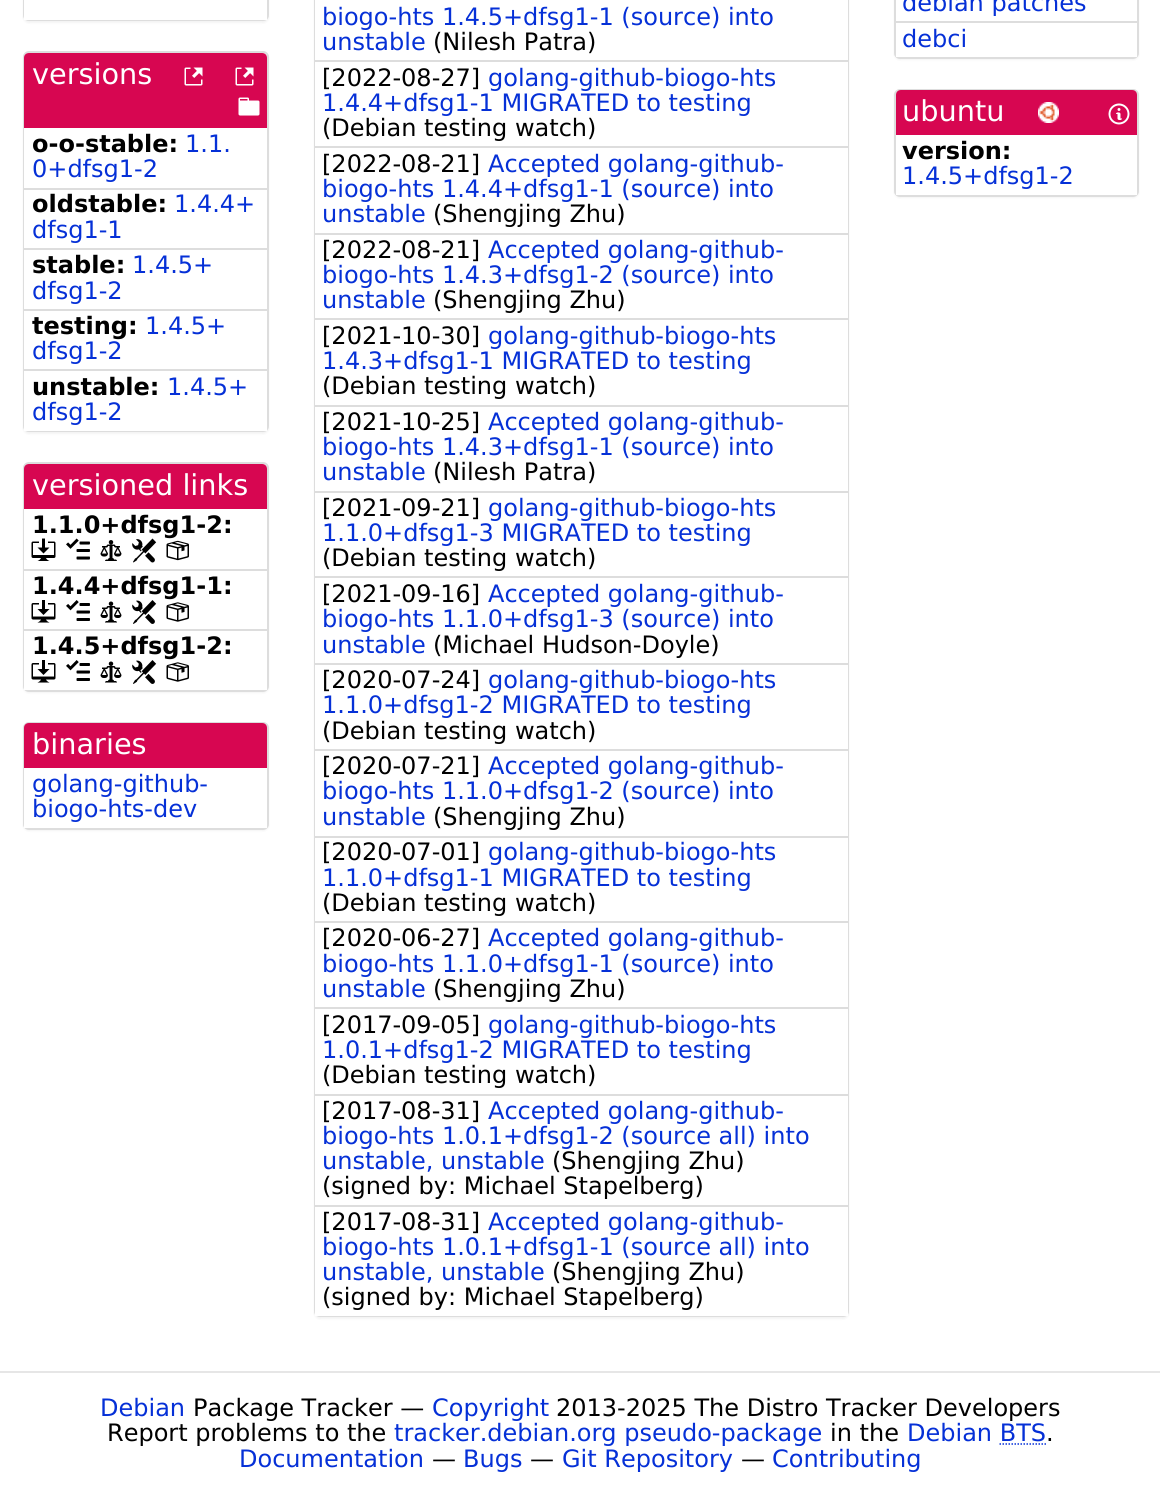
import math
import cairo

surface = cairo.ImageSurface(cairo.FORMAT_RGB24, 1160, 1497)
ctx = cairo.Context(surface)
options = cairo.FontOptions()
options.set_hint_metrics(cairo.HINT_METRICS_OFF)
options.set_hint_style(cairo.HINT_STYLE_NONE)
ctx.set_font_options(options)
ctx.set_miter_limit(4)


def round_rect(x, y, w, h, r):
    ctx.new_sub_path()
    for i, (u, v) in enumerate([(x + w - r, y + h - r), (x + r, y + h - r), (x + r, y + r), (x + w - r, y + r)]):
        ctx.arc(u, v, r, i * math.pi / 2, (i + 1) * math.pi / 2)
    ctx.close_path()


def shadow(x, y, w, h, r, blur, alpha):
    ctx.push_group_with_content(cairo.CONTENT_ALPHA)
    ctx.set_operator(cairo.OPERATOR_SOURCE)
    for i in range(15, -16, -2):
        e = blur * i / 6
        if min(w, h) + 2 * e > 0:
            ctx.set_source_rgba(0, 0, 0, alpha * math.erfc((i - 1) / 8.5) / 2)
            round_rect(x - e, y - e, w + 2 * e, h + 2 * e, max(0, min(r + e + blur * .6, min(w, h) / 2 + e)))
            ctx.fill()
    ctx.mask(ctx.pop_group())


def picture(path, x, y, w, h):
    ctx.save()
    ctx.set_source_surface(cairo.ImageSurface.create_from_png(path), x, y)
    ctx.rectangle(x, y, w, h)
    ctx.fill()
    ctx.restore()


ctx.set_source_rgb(1, 1, 1)
ctx.paint()
ctx.set_source_rgb(0, 0, 0)
shadow(23, -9, 246, 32, 6, 1, 0.05)
round_rect(24, -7, 244, 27, 5)
ctx.set_source_rgb(0.867, 0.867, 0.867)
ctx.stroke()
ctx.set_source_rgb(1, 1, 1)
ctx.rectangle(24, 0, 243, 20)
ctx.fill()
ctx.set_source_rgb(0, 0, 0)
shadow(23, 53, 246, 381, 6, 1, 0.05)
ctx.set_source_rgb(1, 1, 1)
round_rect(24, 52, 244, 379, 5)
ctx.fill_preserve()
ctx.set_source_rgb(0.867, 0.867, 0.867)
ctx.stroke()
ctx.set_source_rgb(0.843, 0.027, 0.318)
ctx.new_path()
ctx.move_to(29, 53)
ctx.line_to(262, 53)
ctx.curve_to(265, 53, 267, 55, 267, 58)
ctx.line_to(267, 129)
ctx.line_to(24, 129)
ctx.line_to(24, 58)
ctx.curve_to(24, 55, 26, 53, 29, 53)
ctx.close_path()
ctx.fill()
ctx.select_font_face("DejaVu Sans")
ctx.set_font_size(28.75)
ctx.set_source_rgb(1, 1, 1)
ctx.move_to(32, 84)
ctx.show_text("versions")
picture("img1.png", 184, 67, 19, 19)
picture("img1.png", 235, 67, 19, 19)
picture("img2.png", 238, 97, 22, 19)
ctx.rectangle(24, 128, 243, 303)
ctx.fill()
ctx.select_font_face("DejaVu Sans", cairo.FONT_SLANT_NORMAL, cairo.FONT_WEIGHT_BOLD)
ctx.set_font_size(24)
ctx.set_source_rgb(0, 0, 0)
ctx.move_to(32, 152)
ctx.show_text("o-o-stable:")
ctx.select_font_face("DejaVu Sans")
ctx.set_source_rgb(0.02, 0.188, 0.843)
ctx.move_to(185, 152)
ctx.show_text("1.1.")
ctx.move_to(32, 177)
ctx.show_text("0+dfsg1-2")
ctx.set_source_rgb(0.867, 0.867, 0.867)
ctx.rectangle(24, 188, 243, 2)
ctx.fill()
ctx.select_font_face("DejaVu Sans", cairo.FONT_SLANT_NORMAL, cairo.FONT_WEIGHT_BOLD)
ctx.set_source_rgb(0, 0, 0)
ctx.move_to(32, 212)
ctx.show_text("oldstable:")
ctx.select_font_face("DejaVu Sans")
ctx.set_source_rgb(0.02, 0.188, 0.843)
ctx.move_to(174, 212)
ctx.show_text("1.4.4+")
ctx.move_to(32, 238)
ctx.show_text("dfsg1-1")
ctx.set_source_rgb(0.867, 0.867, 0.867)
ctx.rectangle(24, 248, 243, 2)
ctx.fill()
ctx.rectangle(24, 309, 243, 2)
ctx.fill()
ctx.select_font_face("DejaVu Sans", cairo.FONT_SLANT_NORMAL, cairo.FONT_WEIGHT_BOLD)
ctx.set_source_rgb(0, 0, 0)
ctx.move_to(32, 273)
ctx.show_text("stable:")
ctx.select_font_face("DejaVu Sans")
ctx.set_source_rgb(0.02, 0.188, 0.843)
ctx.move_to(132, 273)
ctx.show_text("1.4.5+")
ctx.move_to(32, 299)
ctx.show_text("dfsg1-2")
ctx.select_font_face("DejaVu Sans", cairo.FONT_SLANT_NORMAL, cairo.FONT_WEIGHT_BOLD)
ctx.set_source_rgb(0, 0, 0)
ctx.move_to(32, 334)
ctx.show_text("testing:")
ctx.select_font_face("DejaVu Sans")
ctx.set_source_rgb(0.02, 0.188, 0.843)
ctx.move_to(145, 334)
ctx.show_text("1.4.5+")
ctx.move_to(32, 359)
ctx.show_text("dfsg1-2")
ctx.set_source_rgb(0.867, 0.867, 0.867)
ctx.rectangle(24, 369, 243, 2)
ctx.fill()
ctx.select_font_face("DejaVu Sans", cairo.FONT_SLANT_NORMAL, cairo.FONT_WEIGHT_BOLD)
ctx.set_source_rgb(0, 0, 0)
ctx.move_to(32, 395)
ctx.show_text("unstable:")
ctx.select_font_face("DejaVu Sans")
ctx.set_source_rgb(0.02, 0.188, 0.843)
ctx.move_to(167, 395)
ctx.show_text("1.4.5+")
ctx.move_to(32, 420)
ctx.show_text("dfsg1-2")
ctx.set_source_rgb(0, 0, 0)
shadow(23, 464, 246, 229, 6, 1, 0.05)
ctx.set_source_rgb(1, 1, 1)
round_rect(24, 463, 244, 228, 5)
ctx.fill_preserve()
ctx.set_source_rgb(0.867, 0.867, 0.867)
ctx.stroke()
ctx.set_source_rgb(0.843, 0.027, 0.318)
ctx.new_path()
ctx.move_to(29, 464)
ctx.line_to(262, 464)
ctx.curve_to(265, 464, 267, 466, 267, 469)
ctx.line_to(267, 510)
ctx.line_to(24, 510)
ctx.line_to(24, 469)
ctx.curve_to(24, 466, 26, 464, 29, 464)
ctx.close_path()
ctx.fill()
ctx.set_font_size(28.75)
ctx.set_source_rgb(1, 1, 1)
ctx.move_to(32, 495)
ctx.show_text("versioned links")
ctx.rectangle(24, 509, 243, 181)
ctx.fill()
ctx.select_font_face("DejaVu Sans", cairo.FONT_SLANT_NORMAL, cairo.FONT_WEIGHT_BOLD)
ctx.set_font_size(24)
ctx.set_source_rgb(0, 0, 0)
ctx.move_to(32, 533)
ctx.show_text("1.1.0+dfsg1-2:")
picture("img3.png", 31, 538, 25, 23)
picture("img4.png", 66, 538, 24, 22)
picture("img5.png", 100, 540, 22, 21)
picture("img6.png", 132, 538, 25, 25)
picture("img7.png", 166, 540, 23, 21)
ctx.set_source_rgb(0.867, 0.867, 0.867)
ctx.rectangle(24, 569, 243, 2)
ctx.fill()
ctx.set_source_rgb(0, 0, 0)
ctx.move_to(32, 594)
ctx.show_text("1.4.4+dfsg1-1:")
picture("img8.png", 31, 600, 25, 23)
picture("img9.png", 66, 600, 24, 21)
picture("img10.png", 100, 601, 22, 22)
picture("img11.png", 132, 600, 25, 24)
picture("img12.png", 166, 602, 23, 20)
ctx.set_source_rgb(0.867, 0.867, 0.867)
ctx.rectangle(24, 629, 243, 2)
ctx.fill()
ctx.set_source_rgb(0, 0, 0)
ctx.move_to(32, 654)
ctx.show_text("1.4.5+dfsg1-2:")
picture("img8.png", 31, 660, 25, 23)
picture("img9.png", 66, 660, 24, 21)
picture("img10.png", 100, 661, 22, 22)
picture("img11.png", 132, 660, 25, 24)
picture("img12.png", 166, 662, 23, 20)
ctx.set_source_rgb(0, 0, 0)
shadow(23, 723, 246, 108, 6, 1, 0.05)
round_rect(24, 723, 244, 106, 5)
ctx.set_source_rgb(0.867, 0.867, 0.867)
ctx.stroke()
ctx.set_source_rgb(0.843, 0.027, 0.318)
ctx.new_path()
ctx.move_to(29, 723)
ctx.line_to(262, 723)
ctx.curve_to(265, 723, 267, 725, 267, 728)
ctx.line_to(267, 770)
ctx.line_to(24, 770)
ctx.line_to(24, 728)
ctx.curve_to(24, 725, 26, 723, 29, 723)
ctx.close_path()
ctx.fill()
ctx.select_font_face("DejaVu Sans")
ctx.set_font_size(28.75)
ctx.set_source_rgb(1, 1, 1)
ctx.move_to(32, 754)
ctx.show_text("binaries")
ctx.rectangle(24, 768, 243, 60)
ctx.fill()
ctx.set_font_size(24)
ctx.set_source_rgb(0.02, 0.188, 0.843)
ctx.move_to(32, 792)
ctx.show_text("golang-github-")
ctx.move_to(32, 817)
ctx.show_text("biogo-hts-dev")
ctx.set_source_rgb(0, 0, 0)
shadow(314, -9, 535, 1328, 6, 1, 0.05)
round_rect(315, -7, 533, 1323, 5)
ctx.set_source_rgb(0.867, 0.867, 0.867)
ctx.stroke()
ctx.set_source_rgb(1, 1, 1)
ctx.rectangle(315, 0, 533, 1316)
ctx.fill()
ctx.set_source_rgb(0.867, 0.867, 0.867)
ctx.rectangle(315, 60, 533, 2)
ctx.fill()
ctx.set_source_rgb(0.02, 0.188, 0.843)
ctx.move_to(322, 25)
ctx.show_text("biogo-hts 1.4.5+dfsg1-1 (source) into")
ctx.move_to(322, 50)
ctx.show_text("unstable")
ctx.set_source_rgb(0, 0, 0)
ctx.move_to(433, 50)
ctx.show_text("(Nilesh Patra)")
ctx.move_to(322, 86)
ctx.show_text("[2022-08-27]")
ctx.set_source_rgb(0.02, 0.188, 0.843)
ctx.move_to(488, 86)
ctx.show_text("golang-github-biogo-hts")
ctx.move_to(322, 111)
ctx.show_text("1.4.4+dfsg1-1 MIGRATED to testing")
ctx.set_source_rgb(0, 0, 0)
ctx.move_to(322, 136)
ctx.show_text("(Debian testing watch)")
ctx.set_source_rgb(0.867, 0.867, 0.867)
ctx.rectangle(315, 146, 533, 2)
ctx.fill()
ctx.set_source_rgb(0, 0, 0)
ctx.move_to(322, 172)
ctx.show_text("[2022-08-21]")
ctx.set_source_rgb(0.02, 0.188, 0.843)
ctx.move_to(488, 172)
ctx.show_text("Accepted golang-github-")
ctx.move_to(322, 197)
ctx.show_text("biogo-hts 1.4.4+dfsg1-1 (source) into")
ctx.move_to(322, 222)
ctx.show_text("unstable")
ctx.set_source_rgb(0, 0, 0)
ctx.move_to(433, 222)
ctx.show_text("(Shengjing Zhu)")
ctx.set_source_rgb(0.867, 0.867, 0.867)
ctx.rectangle(315, 233, 533, 2)
ctx.fill()
ctx.rectangle(315, 318, 533, 2)
ctx.fill()
ctx.set_source_rgb(0, 0, 0)
ctx.move_to(322, 258)
ctx.show_text("[2022-08-21]")
ctx.set_source_rgb(0.02, 0.188, 0.843)
ctx.move_to(488, 258)
ctx.show_text("Accepted golang-github-")
ctx.move_to(322, 283)
ctx.show_text("biogo-hts 1.4.3+dfsg1-2 (source) into")
ctx.move_to(322, 308)
ctx.show_text("unstable")
ctx.set_source_rgb(0, 0, 0)
ctx.move_to(433, 308)
ctx.show_text("(Shengjing Zhu)")
ctx.set_source_rgb(0.867, 0.867, 0.867)
ctx.rectangle(315, 405, 533, 2)
ctx.fill()
ctx.set_source_rgb(0, 0, 0)
ctx.move_to(322, 344)
ctx.show_text("[2021-10-30]")
ctx.set_source_rgb(0.02, 0.188, 0.843)
ctx.move_to(488, 344)
ctx.show_text("golang-github-biogo-hts")
ctx.move_to(322, 369)
ctx.show_text("1.4.3+dfsg1-1 MIGRATED to testing")
ctx.set_source_rgb(0, 0, 0)
ctx.move_to(322, 394)
ctx.show_text("(Debian testing watch)")
ctx.move_to(322, 430)
ctx.show_text("[2021-10-25]")
ctx.set_source_rgb(0.02, 0.188, 0.843)
ctx.move_to(488, 430)
ctx.show_text("Accepted golang-github-")
ctx.move_to(322, 455)
ctx.show_text("biogo-hts 1.4.3+dfsg1-1 (source) into")
ctx.move_to(322, 480)
ctx.show_text("unstable")
ctx.set_source_rgb(0, 0, 0)
ctx.move_to(433, 480)
ctx.show_text("(Nilesh Patra)")
ctx.set_source_rgb(0.867, 0.867, 0.867)
ctx.rectangle(315, 491, 533, 2)
ctx.fill()
ctx.rectangle(315, 576, 533, 2)
ctx.fill()
ctx.set_source_rgb(0, 0, 0)
ctx.move_to(322, 516)
ctx.show_text("[2021-09-21]")
ctx.set_source_rgb(0.02, 0.188, 0.843)
ctx.move_to(488, 516)
ctx.show_text("golang-github-biogo-hts")
ctx.move_to(322, 541)
ctx.show_text("1.1.0+dfsg1-3 MIGRATED to testing")
ctx.set_source_rgb(0, 0, 0)
ctx.move_to(322, 566)
ctx.show_text("(Debian testing watch)")
ctx.set_source_rgb(0.867, 0.867, 0.867)
ctx.rectangle(315, 663, 533, 2)
ctx.fill()
ctx.set_source_rgb(0, 0, 0)
ctx.move_to(322, 602)
ctx.show_text("[2021-09-16]")
ctx.set_source_rgb(0.02, 0.188, 0.843)
ctx.move_to(488, 602)
ctx.show_text("Accepted golang-github-")
ctx.move_to(322, 627)
ctx.show_text("biogo-hts 1.1.0+dfsg1-3 (source) into")
ctx.move_to(322, 653)
ctx.show_text("unstable")
ctx.set_source_rgb(0, 0, 0)
ctx.move_to(433, 653)
ctx.show_text("(Michael Hudson-Doyle)")
ctx.move_to(322, 688)
ctx.show_text("[2020-07-24]")
ctx.set_source_rgb(0.02, 0.188, 0.843)
ctx.move_to(488, 688)
ctx.show_text("golang-github-biogo-hts")
ctx.move_to(322, 713)
ctx.show_text("1.1.0+dfsg1-2 MIGRATED to testing")
ctx.set_source_rgb(0, 0, 0)
ctx.move_to(322, 739)
ctx.show_text("(Debian testing watch)")
ctx.set_source_rgb(0.867, 0.867, 0.867)
ctx.rectangle(315, 749, 533, 2)
ctx.fill()
ctx.set_source_rgb(0, 0, 0)
ctx.move_to(322, 774)
ctx.show_text("[2020-07-21]")
ctx.set_source_rgb(0.02, 0.188, 0.843)
ctx.move_to(488, 774)
ctx.show_text("Accepted golang-github-")
ctx.move_to(322, 799)
ctx.show_text("biogo-hts 1.1.0+dfsg1-2 (source) into")
ctx.move_to(322, 825)
ctx.show_text("unstable")
ctx.set_source_rgb(0, 0, 0)
ctx.move_to(433, 825)
ctx.show_text("(Shengjing Zhu)")
ctx.set_source_rgb(0.867, 0.867, 0.867)
ctx.rectangle(315, 836, 533, 2)
ctx.fill()
ctx.rectangle(315, 921, 533, 2)
ctx.fill()
ctx.set_source_rgb(0, 0, 0)
ctx.move_to(322, 860)
ctx.show_text("[2020-07-01]")
ctx.set_source_rgb(0.02, 0.188, 0.843)
ctx.move_to(488, 860)
ctx.show_text("golang-github-biogo-hts")
ctx.move_to(322, 886)
ctx.show_text("1.1.0+dfsg1-1 MIGRATED to testing")
ctx.set_source_rgb(0, 0, 0)
ctx.move_to(322, 911)
ctx.show_text("(Debian testing watch)")
ctx.move_to(322, 946)
ctx.show_text("[2020-06-27]")
ctx.set_source_rgb(0.02, 0.188, 0.843)
ctx.move_to(488, 946)
ctx.show_text("Accepted golang-github-")
ctx.move_to(322, 972)
ctx.show_text("biogo-hts 1.1.0+dfsg1-1 (source) into")
ctx.move_to(322, 997)
ctx.show_text("unstable")
ctx.set_source_rgb(0, 0, 0)
ctx.move_to(433, 997)
ctx.show_text("(Shengjing Zhu)")
ctx.set_source_rgb(0.867, 0.867, 0.867)
ctx.rectangle(315, 1007, 533, 2)
ctx.fill()
ctx.set_source_rgb(0, 0, 0)
ctx.move_to(322, 1033)
ctx.show_text("[2017-09-05]")
ctx.set_source_rgb(0.02, 0.188, 0.843)
ctx.move_to(488, 1033)
ctx.show_text("golang-github-biogo-hts")
ctx.move_to(322, 1058)
ctx.show_text("1.0.1+dfsg1-2 MIGRATED to testing")
ctx.set_source_rgb(0, 0, 0)
ctx.move_to(322, 1083)
ctx.show_text("(Debian testing watch)")
ctx.set_source_rgb(0.867, 0.867, 0.867)
ctx.rectangle(315, 1094, 533, 2)
ctx.fill()
ctx.set_source_rgb(0, 0, 0)
ctx.move_to(322, 1119)
ctx.show_text("[2017-08-31]")
ctx.set_source_rgb(0.02, 0.188, 0.843)
ctx.move_to(488, 1119)
ctx.show_text("Accepted golang-github-")
ctx.move_to(322, 1144)
ctx.show_text("biogo-hts 1.0.1+dfsg1-2 (source all) into")
ctx.move_to(322, 1169)
ctx.show_text("unstable, unstable")
ctx.set_source_rgb(0, 0, 0)
ctx.move_to(552, 1169)
ctx.show_text("(Shengjing Zhu)")
ctx.move_to(322, 1194)
ctx.show_text("(signed by: Michael Stapelberg)")
ctx.set_source_rgb(0.867, 0.867, 0.867)
ctx.rectangle(315, 1205, 533, 2)
ctx.fill()
ctx.set_source_rgb(0, 0, 0)
ctx.move_to(322, 1230)
ctx.show_text("[2017-08-31]")
ctx.set_source_rgb(0.02, 0.188, 0.843)
ctx.move_to(488, 1230)
ctx.show_text("Accepted golang-github-")
ctx.move_to(322, 1255)
ctx.show_text("biogo-hts 1.0.1+dfsg1-1 (source all) into")
ctx.move_to(322, 1280)
ctx.show_text("unstable, unstable")
ctx.set_source_rgb(0, 0, 0)
ctx.move_to(552, 1280)
ctx.show_text("(Shengjing Zhu)")
ctx.move_to(322, 1305)
ctx.show_text("(signed by: Michael Stapelberg)")
ctx.set_source_rgb(0, 0, 0)
shadow(894, -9, 245, 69, 6, 1, 0.05)
round_rect(895, -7, 243, 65, 5)
ctx.set_source_rgb(0.867, 0.867, 0.867)
ctx.stroke()
ctx.set_source_rgb(1, 1, 1)
ctx.rectangle(896, 0, 241, 57)
ctx.fill()
ctx.set_source_rgb(0.02, 0.188, 0.843)
ctx.move_to(902, 11)
ctx.show_text("debian patches")
ctx.set_source_rgb(0.867, 0.867, 0.867)
ctx.rectangle(896, 21, 241, 2)
ctx.fill()
ctx.set_source_rgb(0.02, 0.188, 0.843)
ctx.move_to(902, 47)
ctx.show_text("debci")
ctx.set_source_rgb(0, 0, 0)
shadow(894, 90, 245, 108, 6, 1, 0.05)
round_rect(895, 90, 243, 106, 5)
ctx.set_source_rgb(0.867, 0.867, 0.867)
ctx.stroke()
ctx.set_source_rgb(0.843, 0.027, 0.318)
ctx.new_path()
ctx.move_to(901, 90)
ctx.line_to(1132, 90)
ctx.curve_to(1135, 90, 1137, 92, 1137, 95)
ctx.line_to(1137, 137)
ctx.line_to(896, 137)
ctx.line_to(896, 95)
ctx.curve_to(896, 92, 898, 90, 901, 90)
ctx.close_path()
ctx.fill()
ctx.set_font_size(28.75)
ctx.set_source_rgb(1, 1, 1)
ctx.move_to(902, 121)
ctx.show_text("ubuntu")
picture("img13.png", 1038, 102, 21, 21)
picture("img14.png", 1108, 103, 22, 22)
ctx.rectangle(896, 135, 241, 60)
ctx.fill()
ctx.select_font_face("DejaVu Sans", cairo.FONT_SLANT_NORMAL, cairo.FONT_WEIGHT_BOLD)
ctx.set_font_size(24)
ctx.set_source_rgb(0, 0, 0)
ctx.move_to(902, 159)
ctx.show_text("version:")
ctx.select_font_face("DejaVu Sans")
ctx.set_source_rgb(0.02, 0.188, 0.843)
ctx.move_to(902, 184)
ctx.show_text("1.4.5+dfsg1-2")
ctx.set_source_rgb(0.902, 0.902, 0.902)
ctx.rectangle(0, 1371, 1160, 2)
ctx.fill()
ctx.set_source_rgb(0.02, 0.188, 0.843)
ctx.move_to(100, 1416)
ctx.show_text("Debian")
ctx.set_source_rgb(0, 0, 0)
ctx.move_to(193, 1416)
ctx.show_text("Package Tracker —")
ctx.set_source_rgb(0.02, 0.188, 0.843)
ctx.move_to(432, 1416)
ctx.show_text("Copyright")
ctx.set_source_rgb(0, 0, 0)
ctx.move_to(556, 1416)
ctx.show_text("2013-2025 The Distro Tracker Developers")
ctx.move_to(107, 1441)
ctx.show_text("Report problems to the")
ctx.set_source_rgb(0.02, 0.188, 0.843)
ctx.move_to(394, 1441)
ctx.show_text("tracker.debian.org pseudo-package")
ctx.set_source_rgb(0, 0, 0)
ctx.move_to(830, 1441)
ctx.show_text("in the")
ctx.set_source_rgb(0.02, 0.188, 0.843)
ctx.move_to(907, 1441)
ctx.show_text("Debian BTS")
ctx.new_path()
ctx.move_to(999.5, 1444)
ctx.line_to(1046, 1444)
ctx.set_line_width(1.5)
ctx.set_dash([1.5, 1.5])
ctx.stroke()
ctx.set_source_rgb(0, 0, 0)
ctx.move_to(1046, 1441)
ctx.show_text(".")
ctx.set_source_rgb(0.02, 0.188, 0.843)
ctx.move_to(239, 1467)
ctx.show_text("Documentation")
ctx.set_source_rgb(0, 0, 0)
ctx.move_to(432, 1467)
ctx.show_text("—")
ctx.set_source_rgb(0.02, 0.188, 0.843)
ctx.move_to(463, 1467)
ctx.show_text("Bugs")
ctx.set_source_rgb(0, 0, 0)
ctx.move_to(530, 1467)
ctx.show_text("—")
ctx.set_source_rgb(0.02, 0.188, 0.843)
ctx.move_to(562, 1467)
ctx.show_text("Git Repository")
ctx.set_source_rgb(0, 0, 0)
ctx.move_to(741, 1467)
ctx.show_text("—")
ctx.set_source_rgb(0.02, 0.188, 0.843)
ctx.move_to(772, 1467)
ctx.show_text("Contributing")
surface.write_to_png("page.png")
